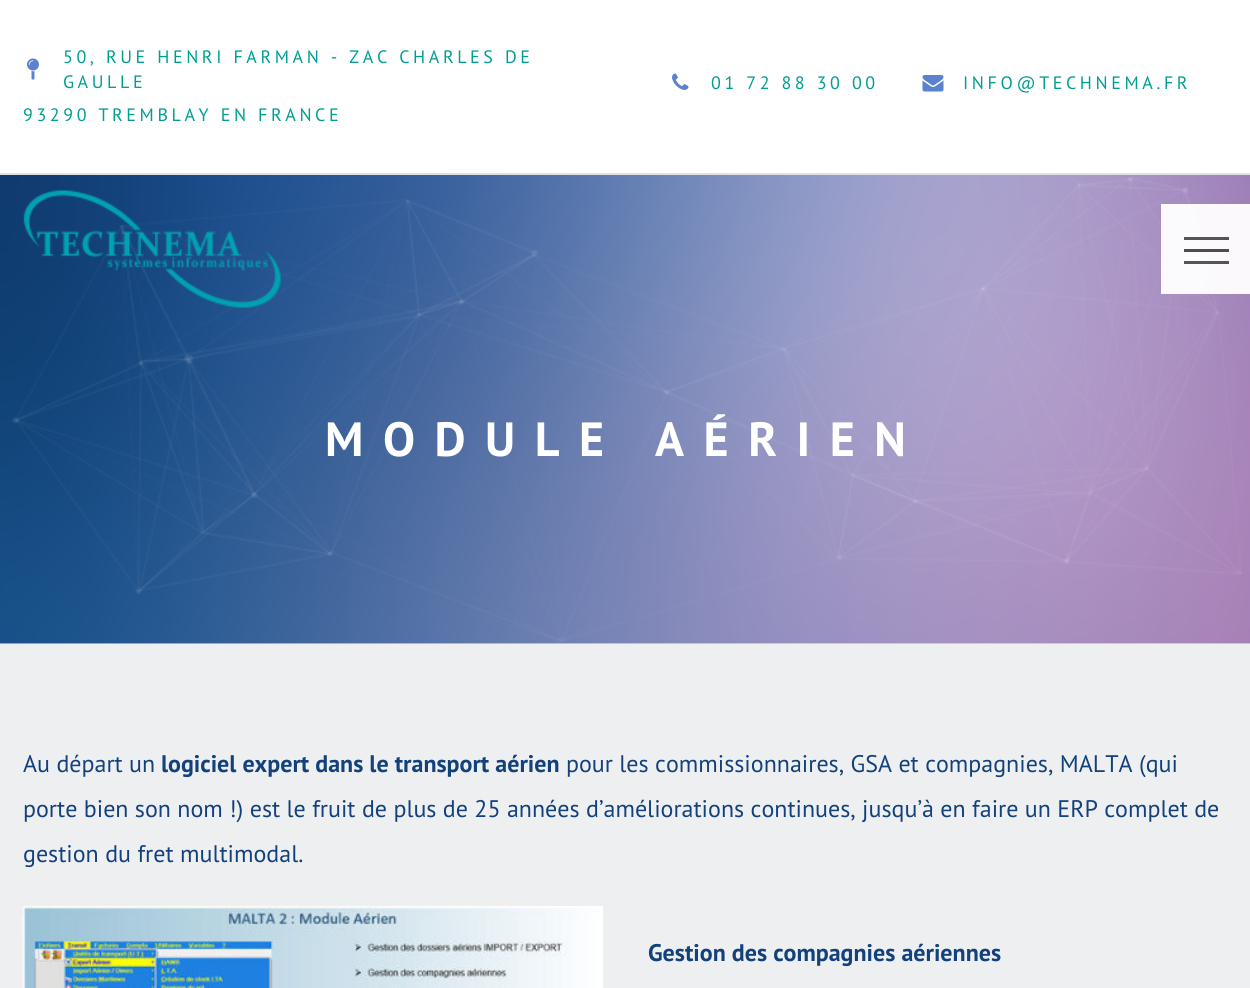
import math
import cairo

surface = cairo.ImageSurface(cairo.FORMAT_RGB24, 1250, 988)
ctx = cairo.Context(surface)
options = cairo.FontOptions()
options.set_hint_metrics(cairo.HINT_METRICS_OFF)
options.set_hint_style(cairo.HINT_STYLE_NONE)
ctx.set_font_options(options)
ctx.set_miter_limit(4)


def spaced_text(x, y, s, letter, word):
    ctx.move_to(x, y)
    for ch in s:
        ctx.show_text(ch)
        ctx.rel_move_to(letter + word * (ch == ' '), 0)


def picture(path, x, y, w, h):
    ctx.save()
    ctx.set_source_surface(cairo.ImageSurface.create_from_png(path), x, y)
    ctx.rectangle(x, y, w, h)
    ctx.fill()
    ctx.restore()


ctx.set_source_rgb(1, 1, 1)
ctx.paint()
picture("img1.png", 27, 58, 12, 22)
ctx.select_font_face("PT Sans")
ctx.set_font_size(18)
ctx.set_source_rgb(0, 0.62, 0.569)
spaced_text(63, 63, "50, RUE HENRI FARMAN - ZAC CHARLES DE", 3.6, 0)
spaced_text(63, 88, "GAULLE", 3.6, 0)
spaced_text(23, 121, "93290 TREMBLAY EN FRANCE", 3.6, 0)
picture("img2.png", 672, 73, 17, 17)
spaced_text(711, 89, "01 72 88 30 00", 3.6, 0)
picture("img3.png", 922, 75, 22, 17)
spaced_text(963, 89, "INFO@TECHNEMA.FR", 3.6, 0)
ctx.set_source_rgb(0.882, 0.882, 0.882)
ctx.rectangle(0, 173, 1250, 2)
ctx.fill()
picture("img6.png", 0, 175, 1250, 469)
ctx.select_font_face("PT Sans", cairo.FONT_SLANT_NORMAL, cairo.FONT_WEIGHT_BOLD)
ctx.set_font_size(48)
ctx.set_source_rgb(1, 1, 1)
spaced_text(325, 456, "MODULE AÉRIEN", 19.5, 0)
picture("img4.png", 12, 177, 1230, 465)
picture("img5.png", 23, 190, 258, 118)
ctx.set_source_rgba(1, 1, 1, 0.95)
ctx.rectangle(1161, 204, 89, 90)
ctx.fill()
ctx.set_source_rgb(0.298, 0.298, 0.298)
ctx.rectangle(1184, 249, 45, 3)
ctx.fill()
ctx.set_source_rgb(0.333, 0.333, 0.333)
ctx.rectangle(1184, 237, 45, 3)
ctx.fill()
ctx.rectangle(1184, 261, 45, 3)
ctx.fill()
ctx.set_source_rgb(0.933, 0.937, 0.941)
ctx.rectangle(0, 644, 1250, 344)
ctx.fill()
ctx.select_font_face("PT Sans")
ctx.set_font_size(24)
ctx.set_source_rgb(0.078, 0.255, 0.486)
ctx.move_to(23, 772)
ctx.show_text("Au départ un")
ctx.select_font_face("PT Sans", cairo.FONT_SLANT_NORMAL, cairo.FONT_WEIGHT_BOLD)
ctx.move_to(161, 772)
ctx.show_text("logiciel expert dans le transport aérien")
ctx.select_font_face("PT Sans")
ctx.move_to(566, 772)
ctx.show_text("pour les commissionnaires, GSA et compagnies, MALTA (qui")
ctx.move_to(23, 817)
ctx.show_text("porte bien son nom !) est le fruit de plus de 25 années d’améliorations continues, jusqu’à en faire un ERP complet de")
ctx.move_to(23, 862)
ctx.show_text("gestion du fret multimodal.")
picture("img7.png", 22, 906, 581, 82)
ctx.select_font_face("PT Sans", cairo.FONT_SLANT_NORMAL, cairo.FONT_WEIGHT_BOLD)
ctx.move_to(648, 961)
ctx.show_text("Gestion des compagnies aériennes")
surface.write_to_png("page.png")
